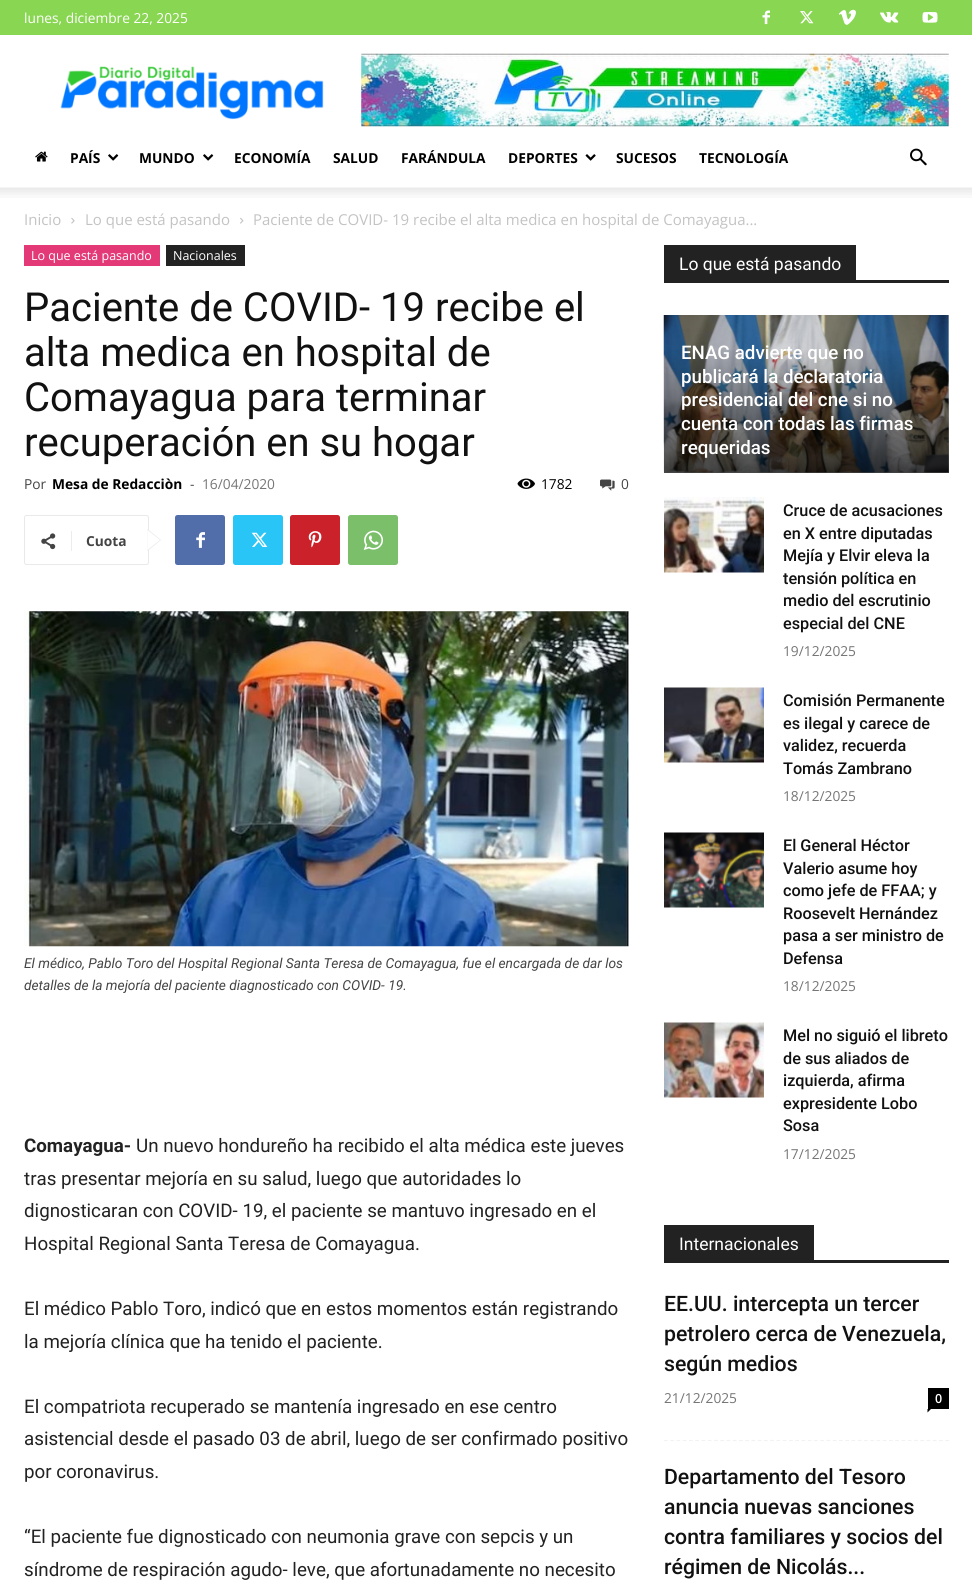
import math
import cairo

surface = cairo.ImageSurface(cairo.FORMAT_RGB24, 972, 1582)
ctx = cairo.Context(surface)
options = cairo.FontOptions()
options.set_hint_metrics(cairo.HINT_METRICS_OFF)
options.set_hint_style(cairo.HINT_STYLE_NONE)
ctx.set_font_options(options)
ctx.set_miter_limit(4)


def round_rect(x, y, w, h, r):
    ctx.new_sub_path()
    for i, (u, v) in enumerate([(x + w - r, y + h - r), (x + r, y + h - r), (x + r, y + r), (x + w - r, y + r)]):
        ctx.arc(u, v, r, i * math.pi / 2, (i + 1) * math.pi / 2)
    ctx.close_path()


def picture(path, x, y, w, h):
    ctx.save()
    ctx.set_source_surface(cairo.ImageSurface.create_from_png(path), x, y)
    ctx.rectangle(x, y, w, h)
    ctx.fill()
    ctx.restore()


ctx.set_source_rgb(1, 1, 1)
ctx.paint()
ctx.set_source_rgb(0.533, 0.839, 0.318)
ctx.rectangle(0, 0, 972, 35)
ctx.fill()
ctx.select_font_face("Open Sans")
ctx.set_font_size(13.75)
ctx.set_source_rgb(1, 1, 1)
ctx.move_to(24, 23)
ctx.show_text("lunes, diciembre 22, 2025")
picture("img1.png", 762, 10, 8, 15)
picture("img2.png", 800, 11, 14, 13)
picture("img3.png", 838, 9, 18, 16)
picture("img4.png", 880, 12, 19, 11)
picture("img5.png", 922, 12, 16, 11)
picture("img6.png", 60, 66, 264, 54)
picture("img7.png", 361, 53, 588, 74)
picture("img8.png", 35, 151, 13, 11)
ctx.select_font_face("Open Sans", cairo.FONT_SLANT_NORMAL, cairo.FONT_WEIGHT_BOLD)
ctx.set_source_rgb(0, 0, 0)
ctx.move_to(70, 163)
ctx.show_text("PAÍS")
picture("img9.png", 108, 154, 11, 7)
ctx.move_to(139, 163)
ctx.show_text("MUNDO")
picture("img9.png", 203, 154, 11, 7)
ctx.move_to(234, 163)
ctx.show_text("ECONOMÍA")
ctx.move_to(333, 163)
ctx.show_text("SALUD")
ctx.move_to(401, 163)
ctx.show_text("FARÁNDULA")
ctx.move_to(508, 163)
ctx.show_text("DEPORTES")
picture("img10.png", 585, 154, 11, 7)
ctx.move_to(616, 163)
ctx.show_text("SUCESOS")
ctx.move_to(699, 163)
ctx.show_text("TECNOLOGÍA")
picture("img11.png", 910, 148, 17, 18)
picture("img12.png", 0, 187, 972, 11)
ctx.select_font_face("Open Sans")
ctx.set_font_size(15)
ctx.set_source_rgb(0.765, 0.765, 0.765)
ctx.move_to(24, 225)
ctx.show_text("Inicio")
picture("img13.png", 71, 217, 4, 7)
ctx.move_to(85, 225)
ctx.show_text("Lo que está pasando")
picture("img14.png", 240, 217, 4, 7)
ctx.move_to(253, 225)
ctx.show_text("Paciente de COVID- 19 recibe el alta medica en hospital de Comayagua...")
ctx.set_source_rgb(0.89, 0.227, 0.467)
ctx.rectangle(24, 245, 136, 21)
ctx.fill()
ctx.set_font_size(12.5)
ctx.set_source_rgb(1, 1, 1)
ctx.move_to(31, 260)
ctx.show_text("Lo que está pasando")
ctx.set_source_rgb(0.133, 0.133, 0.133)
ctx.rectangle(166, 245, 79, 21)
ctx.fill()
ctx.set_source_rgb(1, 1, 1)
ctx.move_to(173, 260)
ctx.show_text("Nacionales")
ctx.select_font_face("Roboto")
ctx.set_font_size(40)
ctx.set_source_rgb(0.067, 0.067, 0.067)
ctx.move_to(24, 321)
ctx.show_text("Paciente de COVID- 19 recibe el")
ctx.move_to(24, 366)
ctx.show_text("alta medica en hospital de")
ctx.move_to(24, 411)
ctx.show_text("Comayagua para terminar")
ctx.move_to(24, 456)
ctx.show_text("recuperación en su hogar")
ctx.select_font_face("Open Sans")
ctx.set_font_size(13.75)
ctx.set_source_rgb(0.267, 0.267, 0.267)
ctx.move_to(24, 489)
ctx.show_text("Por")
ctx.select_font_face("Open Sans", cairo.FONT_SLANT_NORMAL, cairo.FONT_WEIGHT_BOLD)
ctx.set_source_rgb(0, 0, 0)
ctx.move_to(52, 489)
ctx.show_text("Mesa de Redacciòn")
ctx.select_font_face("Open Sans")
ctx.set_source_rgb(0.267, 0.267, 0.267)
ctx.move_to(190, 489)
ctx.show_text("-")
ctx.set_source_rgb(0.463, 0.463, 0.463)
ctx.move_to(202, 489)
ctx.show_text("16/04/2020")
picture("img15.png", 517, 478, 18, 11)
ctx.set_source_rgb(0, 0, 0)
ctx.move_to(541, 489)
ctx.show_text("1782")
picture("img16.png", 600, 479, 15, 12)
ctx.set_source_rgb(0.267, 0.267, 0.267)
ctx.move_to(621, 489)
ctx.show_text("0")
round_rect(24.5, 515.5, 124, 49, 2)
ctx.set_source_rgb(0.914, 0.914, 0.914)
ctx.set_line_width(1)
ctx.stroke()
ctx.new_path()
ctx.move_to(147.5, 551)
ctx.line_to(147.5, 529)
ctx.line_to(161, 540)
ctx.close_path()
ctx.fill()
picture("img17.png", 41, 533, 15, 17)
ctx.set_source_rgb(0.922, 0.922, 0.922)
ctx.rectangle(71, 531, 1, 20)
ctx.fill()
ctx.select_font_face("Open Sans", cairo.FONT_SLANT_NORMAL, cairo.FONT_WEIGHT_BOLD)
ctx.set_source_rgb(0.267, 0.267, 0.267)
ctx.move_to(86, 546)
ctx.show_text("Cuota")
ctx.set_source_rgb(1, 1, 1)
ctx.new_path()
ctx.move_to(147.5, 550)
ctx.line_to(147.5, 530)
ctx.line_to(160, 540)
ctx.close_path()
ctx.fill()
ctx.set_source_rgb(0.318, 0.431, 0.671)
round_rect(175, 515, 50, 50, 2.5)
ctx.fill()
picture("img18.png", 196, 532, 9, 16)
ctx.set_source_rgb(0.161, 0.773, 0.965)
round_rect(233, 515, 50, 50, 2.5)
ctx.fill()
picture("img19.png", 251, 532, 17, 15)
ctx.set_source_rgb(0.792, 0.129, 0.165)
round_rect(290, 515, 50, 50, 2.5)
ctx.fill()
picture("img20.png", 308, 531, 14, 17)
ctx.set_source_rgb(0.482, 0.749, 0.416)
round_rect(348, 515, 50, 50, 2.5)
ctx.fill()
picture("img21.png", 363, 530, 20, 20)
picture("img22.png", 24, 611, 605, 336)
ctx.select_font_face("Roboto", cairo.FONT_SLANT_ITALIC)
ctx.set_source_rgb(0.267, 0.267, 0.267)
ctx.move_to(24, 968)
ctx.show_text("El médico, Pablo Toro del Hospital Regional Santa Teresa de Comayagua, fue el encargada de dar los")
ctx.move_to(24, 990)
ctx.show_text("detalles de la mejoría del paciente diagnosticado con COVID- 19.")
ctx.select_font_face("Roboto", cairo.FONT_SLANT_NORMAL, cairo.FONT_WEIGHT_BOLD)
ctx.set_font_size(18.75)
ctx.set_source_rgb(0.133, 0.133, 0.133)
ctx.move_to(24, 1152)
ctx.show_text("Comayagua-")
ctx.select_font_face("Roboto")
ctx.move_to(136, 1152)
ctx.show_text("Un nuevo hondureño ha recibido el alta médica este jueves")
ctx.move_to(24, 1185)
ctx.show_text("tras presentar mejoría en su salud, luego que autoridades lo")
ctx.move_to(24, 1217)
ctx.show_text("dignosticaran con COVID- 19, el paciente se mantuvo ingresado en el")
ctx.move_to(24, 1250)
ctx.show_text("Hospital Regional Santa Teresa de Comayagua.")
ctx.move_to(24, 1315)
ctx.show_text("El médico Pablo Toro, indicó que en estos momentos están registrando")
ctx.move_to(24, 1348)
ctx.show_text("la mejoría clínica que ha tenido el paciente.")
ctx.move_to(24, 1413)
ctx.show_text("El compatriota recuperado se mantenía ingresado en ese centro")
ctx.move_to(24, 1445)
ctx.show_text("asistencial desde el pasado 03 de abril, luego de ser confirmado positivo")
ctx.move_to(24, 1478)
ctx.show_text("por coronavirus.")
ctx.move_to(24, 1543)
ctx.show_text("“El paciente fue dignosticado con neumonia grave con sepcis y un")
ctx.move_to(24, 1576)
ctx.show_text("síndrome de respiración agudo- leve, que afortunadamente no necesito")
ctx.rectangle(664, 280, 285, 3)
ctx.fill()
ctx.rectangle(664, 245, 192, 35)
ctx.fill()
ctx.set_font_size(17.5)
ctx.set_source_rgb(1, 1, 1)
ctx.move_to(679, 270)
ctx.show_text("Lo que está pasando")
picture("img23.png", 663, 315, 286, 158)
gradient = cairo.LinearGradient(806, 346, 806, 473)
gradient.add_color_stop_rgba(0, 0, 0, 0, 0)
gradient.add_color_stop_rgba(1, 0, 0, 0, 0.7)
ctx.set_source(gradient)
ctx.rectangle(664, 350, 285, 123)
ctx.fill()
ctx.select_font_face("Roboto Medium")
ctx.set_font_size(18.75)
ctx.set_source_rgb(1, 1, 1)
ctx.move_to(681, 359)
ctx.show_text("ENAG advierte que no")
ctx.move_to(681, 383)
ctx.show_text("publicará la declaratoria")
ctx.move_to(681, 406)
ctx.show_text("presidencial del cne si no")
ctx.move_to(681, 430)
ctx.show_text("cuenta con todas las firmas")
ctx.move_to(681, 454)
ctx.show_text("requeridas")
picture("img24.png", 664, 497, 100, 76)
ctx.set_font_size(16.25)
ctx.set_source_rgb(0.067, 0.067, 0.067)
ctx.move_to(783, 516)
ctx.show_text("Cruce de acusaciones")
ctx.move_to(783, 539)
ctx.show_text("en X entre diputadas")
ctx.move_to(783, 561)
ctx.show_text("Mejía y Elvir eleva la")
ctx.move_to(783, 584)
ctx.show_text("tensión política en")
ctx.move_to(783, 606)
ctx.show_text("medio del escrutinio")
ctx.move_to(783, 629)
ctx.show_text("especial del CNE")
ctx.select_font_face("Open Sans")
ctx.set_font_size(13.75)
ctx.set_source_rgb(0.463, 0.463, 0.463)
ctx.move_to(783, 656)
ctx.show_text("19/12/2025")
picture("img25.png", 664, 687, 100, 76)
ctx.select_font_face("Roboto Medium")
ctx.set_font_size(16.25)
ctx.set_source_rgb(0.067, 0.067, 0.067)
ctx.move_to(783, 706)
ctx.show_text("Comisión Permanente")
ctx.move_to(783, 729)
ctx.show_text("es ilegal y carece de")
ctx.move_to(783, 751)
ctx.show_text("validez, recuerda")
ctx.move_to(783, 774)
ctx.show_text("Tomás Zambrano")
ctx.select_font_face("Open Sans")
ctx.set_font_size(13.75)
ctx.set_source_rgb(0.463, 0.463, 0.463)
ctx.move_to(783, 801)
ctx.show_text("18/12/2025")
picture("img26.png", 664, 832, 100, 76)
ctx.select_font_face("Roboto Medium")
ctx.set_font_size(16.25)
ctx.set_source_rgb(0.067, 0.067, 0.067)
ctx.move_to(783, 851)
ctx.show_text("El General Héctor")
ctx.move_to(783, 874)
ctx.show_text("Valerio asume hoy")
ctx.move_to(783, 896)
ctx.show_text("como jefe de FFAA; y")
ctx.move_to(783, 919)
ctx.show_text("Roosevelt Hernández")
ctx.move_to(783, 941)
ctx.show_text("pasa a ser ministro de")
ctx.move_to(783, 964)
ctx.show_text("Defensa")
ctx.select_font_face("Open Sans")
ctx.set_font_size(13.75)
ctx.set_source_rgb(0.463, 0.463, 0.463)
ctx.move_to(783, 991)
ctx.show_text("18/12/2025")
picture("img27.png", 664, 1022, 100, 76)
ctx.select_font_face("Roboto Medium")
ctx.set_font_size(16.25)
ctx.set_source_rgb(0.067, 0.067, 0.067)
ctx.move_to(783, 1041)
ctx.show_text("Mel no siguió el libreto")
ctx.move_to(783, 1064)
ctx.show_text("de sus aliados de")
ctx.move_to(783, 1086)
ctx.show_text("izquierda, afirma")
ctx.move_to(783, 1109)
ctx.show_text("expresidente Lobo")
ctx.move_to(783, 1131)
ctx.show_text("Sosa")
ctx.select_font_face("Open Sans")
ctx.set_font_size(13.75)
ctx.set_source_rgb(0.463, 0.463, 0.463)
ctx.move_to(783, 1159)
ctx.show_text("17/12/2025")
ctx.set_source_rgb(0.133, 0.133, 0.133)
ctx.rectangle(664, 1260, 285, 3)
ctx.fill()
ctx.rectangle(664, 1225, 150, 35)
ctx.fill()
ctx.select_font_face("Roboto")
ctx.set_font_size(17.5)
ctx.set_source_rgb(1, 1, 1)
ctx.move_to(679, 1250)
ctx.show_text("Internacionales")
ctx.new_path()
ctx.move_to(664, 1440.5)
ctx.line_to(949, 1440.5)
ctx.set_source_rgb(0.949, 0.949, 0.949)
ctx.set_line_width(1.2)
ctx.set_dash([3.75, 2.5])
ctx.stroke()
ctx.select_font_face("Roboto Medium")
ctx.set_font_size(21.25)
ctx.set_source_rgb(0.067, 0.067, 0.067)
ctx.move_to(664, 1311)
ctx.show_text("EE.UU. intercepta un tercer")
ctx.move_to(664, 1341)
ctx.show_text("petrolero cerca de Venezuela,")
ctx.move_to(664, 1371)
ctx.show_text("según medios")
ctx.select_font_face("Open Sans")
ctx.set_font_size(13.75)
ctx.set_source_rgb(0.463, 0.463, 0.463)
ctx.move_to(664, 1403)
ctx.show_text("21/12/2025")
ctx.set_source_rgb(0, 0, 0)
ctx.rectangle(928, 1388, 21, 21)
ctx.fill()
ctx.select_font_face("Open Sans SemiBold")
ctx.set_font_size(12.5)
ctx.set_source_rgb(1, 1, 1)
ctx.move_to(935, 1403)
ctx.show_text("0")
ctx.set_source_rgb(0, 0, 0)
ctx.new_path()
ctx.move_to(927.5, 1409)
ctx.line_to(931, 1409)
ctx.line_to(927.5, 1412.5)
ctx.close_path()
ctx.fill()
ctx.select_font_face("Roboto Medium")
ctx.set_font_size(21.25)
ctx.set_source_rgb(0.067, 0.067, 0.067)
ctx.move_to(664, 1484)
ctx.show_text("Departamento del Tesoro")
ctx.move_to(664, 1514)
ctx.show_text("anuncia nuevas sanciones")
ctx.move_to(664, 1544)
ctx.show_text("contra familiares y socios del")
ctx.move_to(664, 1574)
ctx.show_text("régimen de Nicolás...")
surface.write_to_png("page.png")
